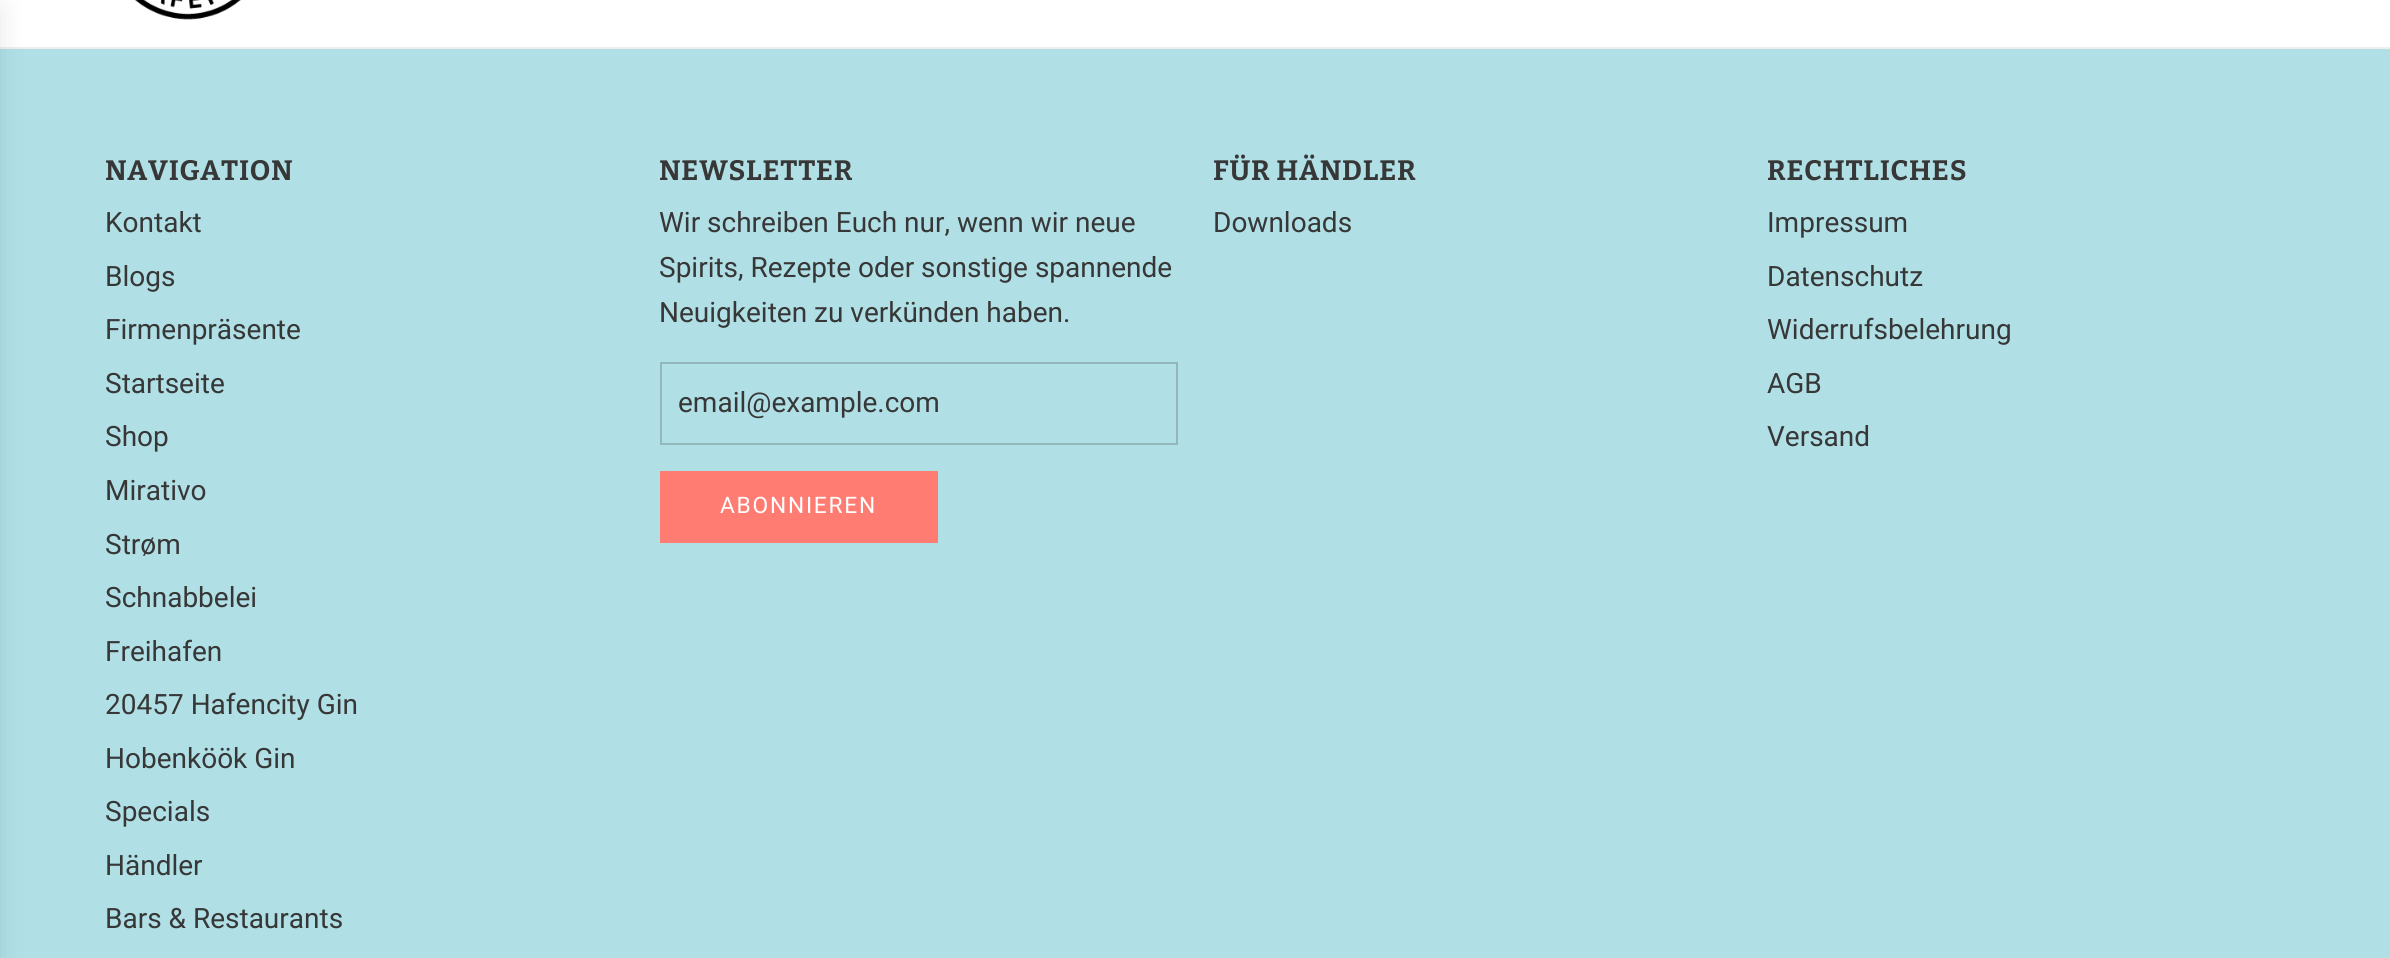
import math
import cairo

surface = cairo.ImageSurface(cairo.FORMAT_RGB24, 2390, 958)
ctx = cairo.Context(surface)
options = cairo.FontOptions()
options.set_hint_metrics(cairo.HINT_METRICS_OFF)
options.set_hint_style(cairo.HINT_STYLE_NONE)
ctx.set_font_options(options)
ctx.set_miter_limit(4)


def spaced_text(x, y, s, letter, word):
    ctx.move_to(x, y)
    for ch in s:
        ctx.show_text(ch)
        ctx.rel_move_to(letter + word * (ch == ' '), 0)


def round_rect(x, y, w, h, r):
    ctx.new_sub_path()
    for i, (u, v) in enumerate([(x + w - r, y + h - r), (x + r, y + h - r), (x + r, y + r), (x + w - r, y + r)]):
        ctx.arc(u, v, r, i * math.pi / 2, (i + 1) * math.pi / 2)
    ctx.close_path()


def shadow(x, y, w, h, r, blur, alpha):
    ctx.push_group_with_content(cairo.CONTENT_ALPHA)
    ctx.set_operator(cairo.OPERATOR_SOURCE)
    for i in range(15, -16, -2):
        e = blur * i / 6
        if min(w, h) + 2 * e > 0:
            ctx.set_source_rgba(0, 0, 0, alpha * math.erfc((i - 1) / 8.5) / 2)
            round_rect(x - e, y - e, w + 2 * e, h + 2 * e, max(0, min(r + e + blur * .6, min(w, h) / 2 + e)))
            ctx.fill()
    ctx.mask(ctx.pop_group())


def picture(path, x, y, w, h):
    ctx.save()
    ctx.set_source_surface(cairo.ImageSurface.create_from_png(path), x, y)
    ctx.rectangle(x, y, w, h)
    ctx.fill()
    ctx.restore()


ctx.set_source_rgb(1, 1, 1)
ctx.paint()
ctx.set_source_rgb(0.933, 0.933, 0.933)
ctx.rectangle(0, 47, 2390, 2)
ctx.fill()
picture("img1.png", 135, 0, 106, 20)
ctx.set_source_rgb(0.69, 0.878, 0.902)
ctx.rectangle(0, 49, 2390, 909)
ctx.fill()
ctx.set_source_rgb(0, 0, 0)
shadow(-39, 9, 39, 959, 0, 13, 0.1)
ctx.select_font_face("Bitter", cairo.FONT_SLANT_NORMAL, cairo.FONT_WEIGHT_BOLD)
ctx.set_font_size(28)
ctx.set_source_rgb(0.216, 0.216, 0.216)
spaced_text(105, 180, "NAVIGATION", 0.75, 0)
ctx.select_font_face("Roboto")
ctx.move_to(105, 232)
ctx.show_text("Kontakt")
ctx.move_to(105, 286)
ctx.show_text("Blogs")
ctx.move_to(105, 339)
ctx.show_text("Firmenpräsente")
ctx.move_to(105, 393)
ctx.show_text("Startseite")
ctx.move_to(105, 446)
ctx.show_text("Shop")
ctx.move_to(105, 500)
ctx.show_text("Mirativo")
ctx.move_to(105, 554)
ctx.show_text("Strøm")
ctx.move_to(105, 607)
ctx.show_text("Schnabbelei")
ctx.move_to(105, 661)
ctx.show_text("Freihafen")
ctx.move_to(105, 714)
ctx.show_text("20457 Hafencity Gin")
ctx.move_to(105, 768)
ctx.show_text("Hobenköök Gin")
ctx.move_to(105, 821)
ctx.show_text("Specials")
ctx.move_to(105, 875)
ctx.show_text("Händler")
ctx.move_to(105, 928)
ctx.show_text("Bars & Restaurants")
ctx.select_font_face("Bitter", cairo.FONT_SLANT_NORMAL, cairo.FONT_WEIGHT_BOLD)
spaced_text(659, 180, "NEWSLETTER", 0.75, 0)
ctx.select_font_face("Roboto")
ctx.move_to(659, 232)
ctx.show_text("Wir schreiben Euch nur, wenn wir neue")
ctx.move_to(659, 277)
ctx.show_text("Spirits, Rezepte oder sonstige spannende")
ctx.move_to(659, 322)
ctx.show_text("Neuigkeiten zu verkünden haben.")
ctx.rectangle(661, 363, 516, 81)
ctx.set_source_rgb(0.573, 0.714, 0.729)
ctx.stroke()
ctx.set_source_rgb(0.216, 0.216, 0.216)
ctx.move_to(678, 412)
ctx.show_text("email@example.com")
ctx.set_source_rgb(1, 0.486, 0.451)
ctx.rectangle(660, 471, 278, 72)
ctx.fill()
ctx.set_font_size(22.75)
ctx.set_source_rgb(1, 1, 1)
spaced_text(720, 513, "ABONNIEREN", 1.75, 0)
ctx.select_font_face("Bitter", cairo.FONT_SLANT_NORMAL, cairo.FONT_WEIGHT_BOLD)
ctx.set_font_size(28)
ctx.set_source_rgb(0.216, 0.216, 0.216)
spaced_text(1213, 180, "FÜR HÄNDLER", 0.75, 0)
ctx.select_font_face("Roboto")
ctx.move_to(1213, 232)
ctx.show_text("Downloads")
ctx.select_font_face("Bitter", cairo.FONT_SLANT_NORMAL, cairo.FONT_WEIGHT_BOLD)
spaced_text(1767, 180, "RECHTLICHES", 0.75, 0)
ctx.select_font_face("Roboto")
ctx.move_to(1767, 232)
ctx.show_text("Impressum")
ctx.move_to(1767, 286)
ctx.show_text("Datenschutz")
ctx.move_to(1767, 339)
ctx.show_text("Widerrufsbelehrung")
ctx.move_to(1767, 393)
ctx.show_text("AGB")
ctx.move_to(1767, 446)
ctx.show_text("Versand")
surface.write_to_png("page.png")
